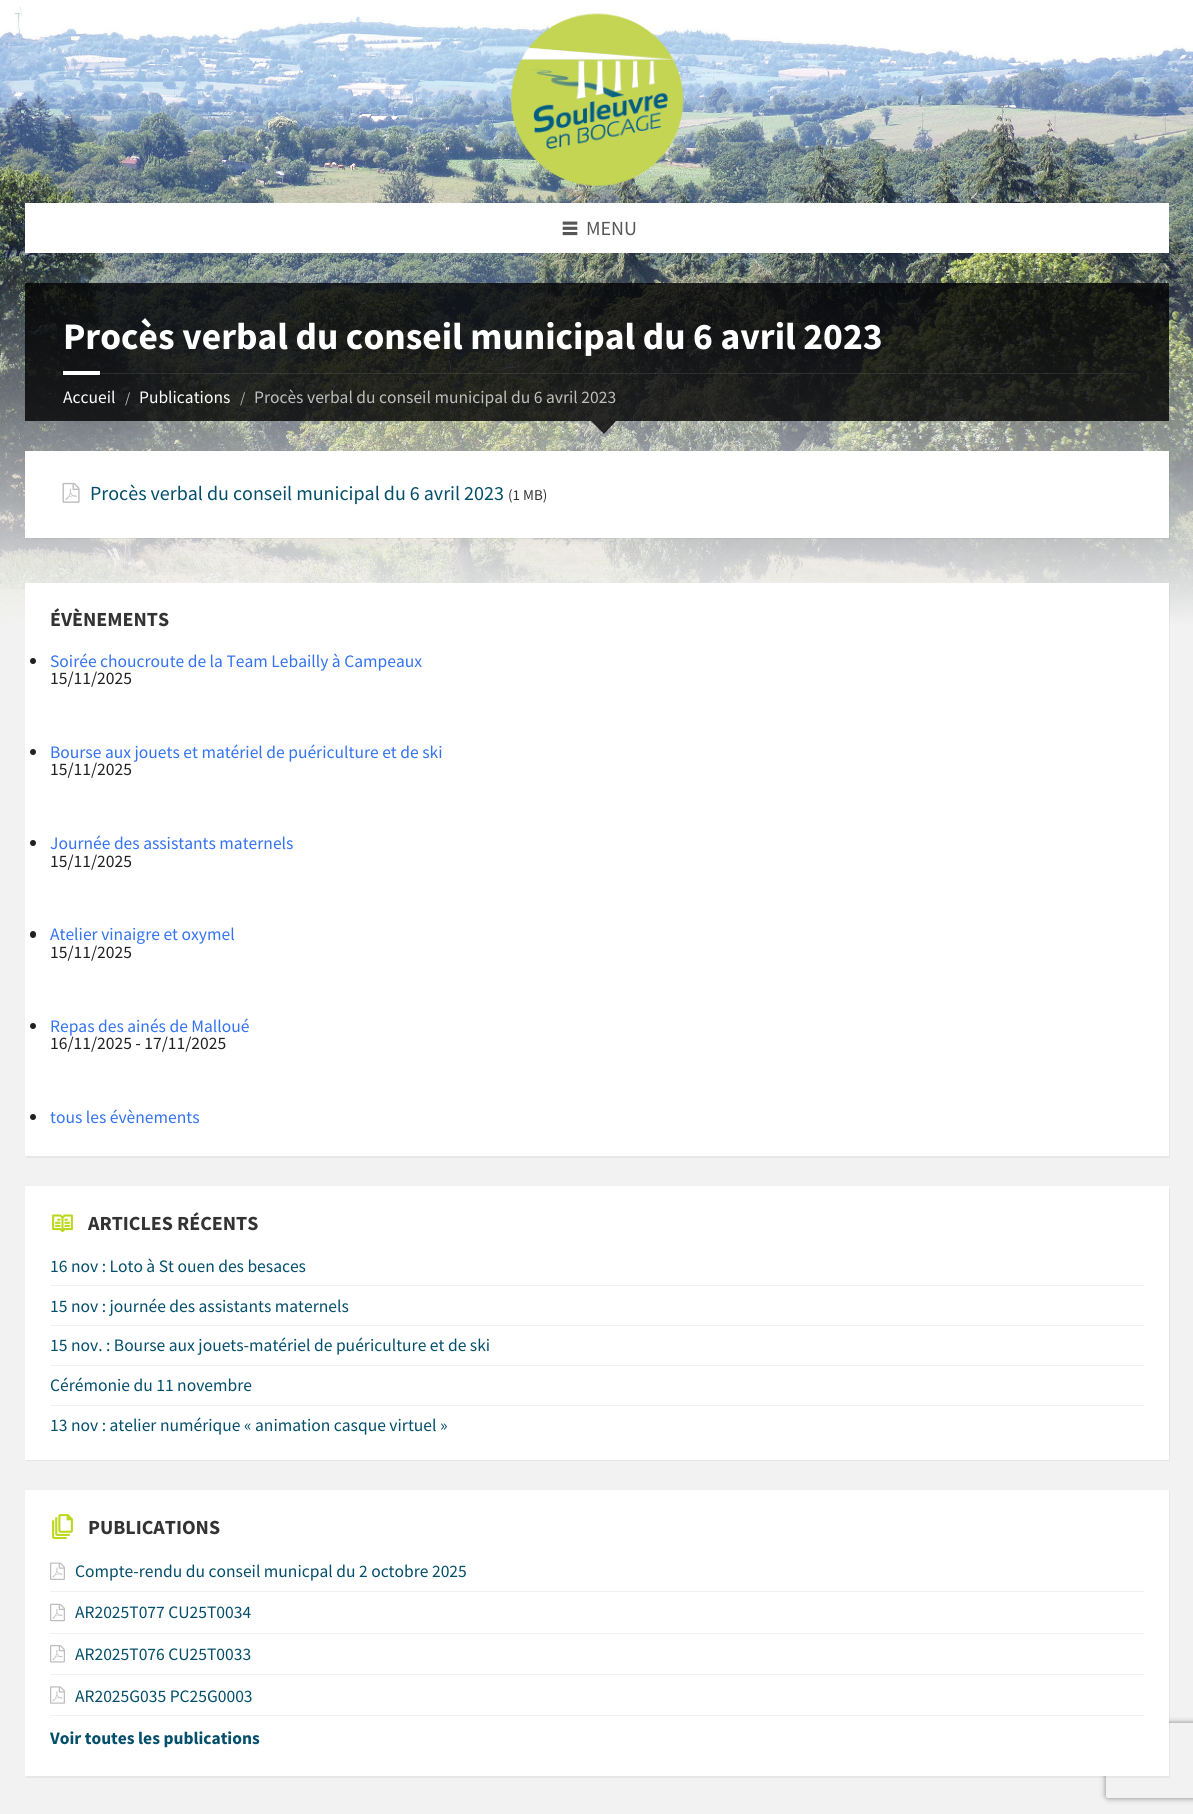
import math
import cairo

surface = cairo.ImageSurface(cairo.FORMAT_RGB24, 1193, 1814)
ctx = cairo.Context(surface)
options = cairo.FontOptions()
options.set_hint_metrics(cairo.HINT_METRICS_OFF)
options.set_hint_style(cairo.HINT_STYLE_NONE)
ctx.set_font_options(options)
ctx.set_miter_limit(4)


def round_rect(x, y, w, h, r):
    ctx.new_sub_path()
    for i, (u, v) in enumerate([(x + w - r, y + h - r), (x + r, y + h - r), (x + r, y + r), (x + w - r, y + r)]):
        ctx.arc(u, v, r, i * math.pi / 2, (i + 1) * math.pi / 2)
    ctx.close_path()


def shadow(x, y, w, h, r, blur, alpha):
    ctx.push_group_with_content(cairo.CONTENT_ALPHA)
    ctx.set_operator(cairo.OPERATOR_SOURCE)
    for i in range(15, -16, -2):
        e = blur * i / 6
        if min(w, h) + 2 * e > 0:
            ctx.set_source_rgba(0, 0, 0, alpha * math.erfc((i - 1) / 8.5) / 2)
            round_rect(x - e, y - e, w + 2 * e, h + 2 * e, max(0, min(r + e + blur * .6, min(w, h) / 2 + e)))
            ctx.fill()
    ctx.mask(ctx.pop_group())


def picture(path, x, y, w, h):
    ctx.save()
    ctx.set_source_surface(cairo.ImageSurface.create_from_png(path), x, y)
    ctx.rectangle(x, y, w, h)
    ctx.fill()
    ctx.restore()


ctx.set_source_rgb(0.949, 0.949, 0.949)
ctx.paint()
ctx.set_source_rgb(1, 1, 1)
ctx.rectangle(0, 0, 1193, 6)
ctx.fill()
picture("img1.png", 0, 6, 1193, 619)
picture("img2.png", 511, 13, 173, 173)
ctx.rectangle(25, 203, 1144, 50)
ctx.fill()
picture("img3.png", 562, 221, 16, 15)
ctx.select_font_face("Source Sans Pro")
ctx.set_font_size(20)
ctx.set_source_rgb(0.337, 0.337, 0.337)
ctx.move_to(586, 235)
ctx.show_text("MENU")
ctx.set_source_rgba(0, 0, 0, 0.8)
ctx.rectangle(25, 283, 1144, 138)
ctx.fill()
ctx.set_source_rgba(1, 1, 1, 0.1)
ctx.rectangle(100, 373, 1031, 1)
ctx.fill()
ctx.select_font_face("Source Sans Pro", cairo.FONT_SLANT_NORMAL, cairo.FONT_WEIGHT_BOLD)
ctx.set_font_size(37.5)
ctx.set_source_rgb(1, 1, 1)
ctx.move_to(63, 349)
ctx.show_text("Procès verbal du conseil municipal du 6 avril 2023")
ctx.rectangle(63, 371, 37, 4)
ctx.fill()
ctx.select_font_face("Source Sans Pro")
ctx.set_font_size(17.5)
ctx.move_to(63, 403)
ctx.show_text("Accueil")
ctx.set_font_size(15)
ctx.set_source_rgb(0.745, 0.745, 0.745)
ctx.move_to(125, 403)
ctx.show_text("/")
ctx.set_font_size(17.5)
ctx.set_source_rgb(1, 1, 1)
ctx.move_to(139, 403)
ctx.show_text("Publications")
ctx.set_font_size(15)
ctx.set_source_rgb(0.745, 0.745, 0.745)
ctx.move_to(240, 403)
ctx.show_text("/")
ctx.set_font_size(17.5)
ctx.move_to(254, 403)
ctx.show_text("Procès verbal du conseil municipal du 6 avril 2023")
ctx.set_source_rgba(0, 0, 0, 0.8)
ctx.new_path()
ctx.move_to(591, 421)
ctx.line_to(616, 421)
ctx.line_to(604, 434)
ctx.close_path()
ctx.fill()
ctx.set_source_rgba(0, 0, 0, 0.05)
ctx.new_path()
ctx.move_to(26, 538)
ctx.line_to(26, 539)
ctx.line_to(1170, 539)
ctx.line_to(1170, 453)
ctx.line_to(1169, 453)
ctx.line_to(1169, 538)
ctx.close_path()
ctx.fill()
ctx.set_source_rgb(1, 1, 1)
ctx.rectangle(25, 451, 1144, 87)
ctx.fill()
picture("img4.png", 62, 482, 18, 21)
ctx.set_font_size(20)
ctx.set_source_rgb(0.012, 0.306, 0.416)
ctx.move_to(90, 500)
ctx.show_text("Procès verbal du conseil municipal du 6 avril 2023")
ctx.set_font_size(15)
ctx.set_source_rgb(0.2, 0.2, 0.2)
ctx.move_to(508, 500)
ctx.show_text("(1 MB)")
ctx.set_source_rgba(0, 0, 0, 0.05)
ctx.new_path()
ctx.move_to(26, 1156)
ctx.line_to(26, 1158)
ctx.line_to(1170, 1158)
ctx.line_to(1170, 584)
ctx.line_to(1169, 584)
ctx.line_to(1169, 1156)
ctx.close_path()
ctx.fill()
ctx.set_source_rgb(1, 1, 1)
ctx.rectangle(25, 583, 1144, 573)
ctx.fill()
ctx.select_font_face("Source Sans Pro", cairo.FONT_SLANT_NORMAL, cairo.FONT_WEIGHT_BOLD)
ctx.set_font_size(20)
ctx.set_source_rgb(0.2, 0.2, 0.2)
ctx.move_to(50, 626)
ctx.show_text("ÉVÈNEMENTS")
ctx.set_source_rgb(0.129, 0.129, 0.129)
ctx.new_path()
ctx.arc(33, 661, 3, 0, 2 * math.pi)
ctx.fill()
ctx.select_font_face("Source Sans Pro")
ctx.set_font_size(17.5)
ctx.set_source_rgb(0.2, 0.447, 0.941)
ctx.move_to(50, 667)
ctx.show_text("Soirée choucroute de la Team Lebailly à Campeaux")
ctx.set_source_rgb(0.129, 0.129, 0.129)
ctx.move_to(50, 684)
ctx.show_text("15/11/2025")
ctx.new_path()
ctx.arc(33, 752, 3, 0, 2 * math.pi)
ctx.fill()
ctx.set_source_rgb(0.2, 0.447, 0.941)
ctx.move_to(50, 758)
ctx.show_text("Bourse aux jouets et matériel de puériculture et de ski")
ctx.set_source_rgb(0.129, 0.129, 0.129)
ctx.move_to(50, 775)
ctx.show_text("15/11/2025")
ctx.new_path()
ctx.arc(33, 843, 3, 0, 2 * math.pi)
ctx.fill()
ctx.set_source_rgb(0.2, 0.447, 0.941)
ctx.move_to(50, 849)
ctx.show_text("Journée des assistants maternels")
ctx.set_source_rgb(0.129, 0.129, 0.129)
ctx.move_to(50, 867)
ctx.show_text("15/11/2025")
round_rect(30, 931, 6, 7, 3)
ctx.fill()
ctx.set_source_rgb(0.2, 0.447, 0.941)
ctx.move_to(50, 940)
ctx.show_text("Atelier vinaigre et oxymel")
ctx.set_source_rgb(0.129, 0.129, 0.129)
ctx.move_to(50, 958)
ctx.show_text("15/11/2025")
ctx.new_path()
ctx.arc(33, 1026, 3, 0, 2 * math.pi)
ctx.fill()
ctx.set_source_rgb(0.2, 0.447, 0.941)
ctx.move_to(50, 1032)
ctx.show_text("Repas des ainés de Malloué")
ctx.set_source_rgb(0.129, 0.129, 0.129)
ctx.move_to(50, 1049)
ctx.show_text("16/11/2025 - 17/11/2025")
ctx.new_path()
ctx.arc(33, 1117, 3, 0, 2 * math.pi)
ctx.fill()
ctx.set_source_rgb(0.2, 0.447, 0.941)
ctx.move_to(50, 1123)
ctx.show_text("tous les évènements")
ctx.set_source_rgb(0.902, 0.902, 0.902)
ctx.new_path()
ctx.move_to(26, 1460)
ctx.line_to(26, 1461)
ctx.line_to(1170, 1461)
ctx.line_to(1170, 1188)
ctx.line_to(1169, 1188)
ctx.line_to(1169, 1460)
ctx.close_path()
ctx.fill()
ctx.set_source_rgb(1, 1, 1)
ctx.rectangle(25, 1186, 1144, 274)
ctx.fill()
picture("img5.png", 52, 1214, 21, 19)
ctx.select_font_face("Source Sans Pro", cairo.FONT_SLANT_NORMAL, cairo.FONT_WEIGHT_BOLD)
ctx.set_font_size(20)
ctx.set_source_rgb(0.2, 0.2, 0.2)
ctx.move_to(88, 1230)
ctx.show_text("ARTICLES RÉCENTS")
ctx.select_font_face("Source Sans Pro")
ctx.set_font_size(17.5)
ctx.set_source_rgb(0.012, 0.306, 0.416)
ctx.move_to(50, 1272)
ctx.show_text("16 nov : Loto à St ouen des besaces")
ctx.set_source_rgb(0.941, 0.941, 0.941)
ctx.rectangle(50, 1285, 1094, 1)
ctx.fill()
ctx.set_source_rgb(0.012, 0.306, 0.416)
ctx.move_to(50, 1312)
ctx.show_text("15 nov : journée des assistants maternels")
ctx.set_source_rgb(0.941, 0.941, 0.941)
ctx.rectangle(50, 1325, 1094, 1)
ctx.fill()
ctx.set_source_rgb(0.012, 0.306, 0.416)
ctx.move_to(50, 1351)
ctx.show_text("15 nov. : Bourse aux jouets-matériel de puériculture et de ski")
ctx.set_source_rgb(0.941, 0.941, 0.941)
ctx.rectangle(50, 1365, 1094, 1)
ctx.fill()
ctx.set_source_rgb(0.012, 0.306, 0.416)
ctx.move_to(50, 1391)
ctx.show_text("Cérémonie du 11 novembre")
ctx.set_source_rgb(0.941, 0.941, 0.941)
ctx.rectangle(50, 1405, 1094, 1)
ctx.fill()
ctx.set_source_rgb(0.012, 0.306, 0.416)
ctx.move_to(50, 1431)
ctx.show_text("13 nov : atelier numérique « animation casque virtuel »")
ctx.save()
ctx.set_fill_rule(cairo.FILL_RULE_EVEN_ODD)
ctx.new_path()
ctx.move_to(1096, 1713)
ctx.line_to(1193, 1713)
ctx.line_to(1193, 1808)
ctx.line_to(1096, 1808)
ctx.close_path()
ctx.move_to(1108.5, 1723)
ctx.line_to(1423.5, 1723)
ctx.curve_to(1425, 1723, 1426, 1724, 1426, 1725.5)
ctx.line_to(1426, 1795.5)
ctx.curve_to(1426, 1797, 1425, 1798, 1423.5, 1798)
ctx.line_to(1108.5, 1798)
ctx.curve_to(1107, 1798, 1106, 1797, 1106, 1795.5)
ctx.line_to(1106, 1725.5)
ctx.curve_to(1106, 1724, 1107, 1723, 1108.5, 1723)
ctx.close_path()
ctx.clip()
ctx.set_source_rgb(0.502, 0.502, 0.502)
shadow(1106, 1723, 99, 75, 2.5, 3, 1)
ctx.restore()
ctx.set_source_rgba(0, 0, 0, 0.05)
ctx.new_path()
ctx.move_to(26, 1776)
ctx.line_to(26, 1778)
ctx.line_to(1170, 1778)
ctx.line_to(1170, 1491)
ctx.line_to(1169, 1491)
ctx.line_to(1169, 1776)
ctx.close_path()
ctx.fill()
ctx.set_source_rgb(1, 1, 1)
ctx.rectangle(25, 1490, 1144, 286)
ctx.fill()
picture("img6.png", 52, 1514, 21, 26)
ctx.select_font_face("Source Sans Pro", cairo.FONT_SLANT_NORMAL, cairo.FONT_WEIGHT_BOLD)
ctx.set_font_size(20)
ctx.set_source_rgb(0.2, 0.2, 0.2)
ctx.move_to(88, 1534)
ctx.show_text("PUBLICATIONS")
picture("img7.png", 50, 1562, 15, 18)
ctx.select_font_face("Source Sans Pro")
ctx.set_font_size(17.5)
ctx.set_source_rgb(0.012, 0.306, 0.416)
ctx.move_to(75, 1577)
ctx.show_text("Compte-rendu du conseil municpal du 2 octobre 2025")
ctx.set_source_rgb(0.941, 0.941, 0.941)
ctx.rectangle(50, 1591, 1094, 1)
ctx.fill()
picture("img8.png", 50, 1603, 15, 19)
ctx.set_source_rgb(0.012, 0.306, 0.416)
ctx.move_to(75, 1618)
ctx.show_text("AR2025T077 CU25T0034")
ctx.set_source_rgb(0.941, 0.941, 0.941)
ctx.rectangle(50, 1633, 1094, 1)
ctx.fill()
picture("img9.png", 50, 1645, 15, 18)
ctx.set_source_rgb(0.012, 0.306, 0.416)
ctx.move_to(75, 1660)
ctx.show_text("AR2025T076 CU25T0033")
ctx.set_source_rgb(0.941, 0.941, 0.941)
ctx.rectangle(50, 1674, 1094, 1)
ctx.fill()
picture("img10.png", 50, 1686, 15, 18)
ctx.set_source_rgb(0.012, 0.306, 0.416)
ctx.move_to(75, 1702)
ctx.show_text("AR2025G035 PC25G0003")
ctx.set_source_rgb(0.941, 0.941, 0.941)
ctx.rectangle(50, 1715, 1094, 1)
ctx.fill()
ctx.select_font_face("Source Sans Pro", cairo.FONT_SLANT_NORMAL, cairo.FONT_WEIGHT_BOLD)
ctx.set_source_rgb(0.012, 0.306, 0.416)
ctx.move_to(50, 1744)
ctx.show_text("Voir toutes les publications")
surface.write_to_png("page.png")
